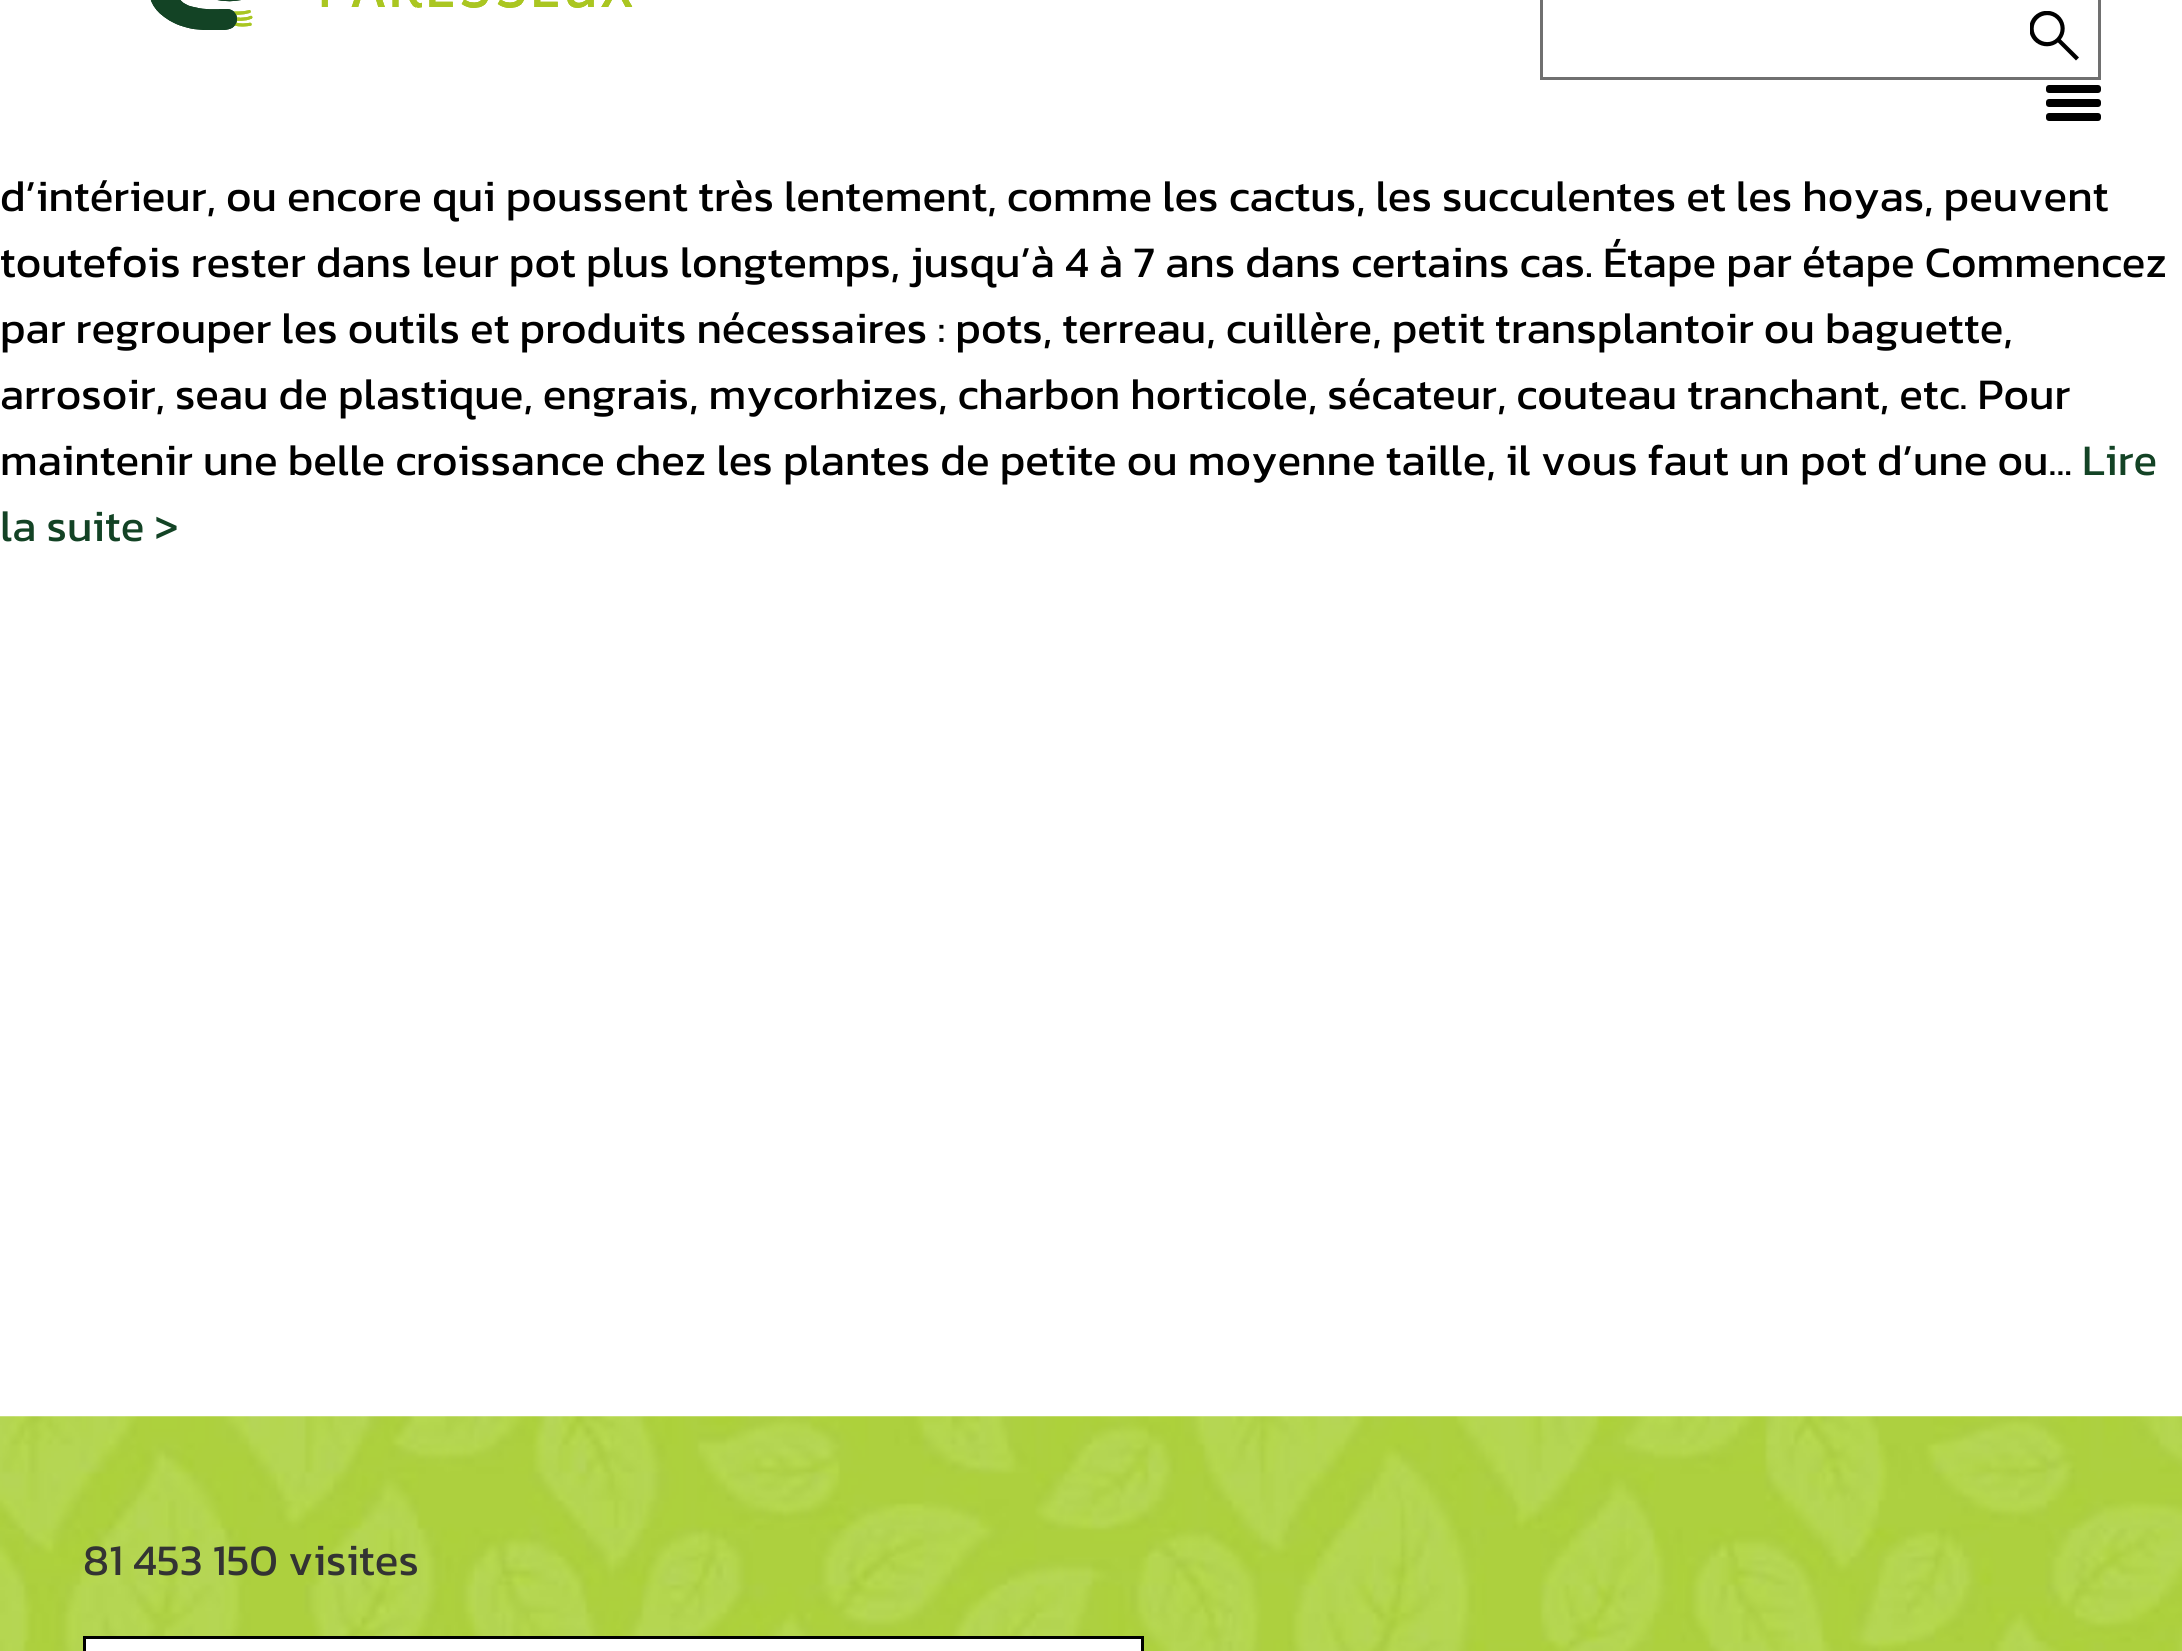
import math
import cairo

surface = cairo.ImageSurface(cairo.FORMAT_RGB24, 2182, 1651)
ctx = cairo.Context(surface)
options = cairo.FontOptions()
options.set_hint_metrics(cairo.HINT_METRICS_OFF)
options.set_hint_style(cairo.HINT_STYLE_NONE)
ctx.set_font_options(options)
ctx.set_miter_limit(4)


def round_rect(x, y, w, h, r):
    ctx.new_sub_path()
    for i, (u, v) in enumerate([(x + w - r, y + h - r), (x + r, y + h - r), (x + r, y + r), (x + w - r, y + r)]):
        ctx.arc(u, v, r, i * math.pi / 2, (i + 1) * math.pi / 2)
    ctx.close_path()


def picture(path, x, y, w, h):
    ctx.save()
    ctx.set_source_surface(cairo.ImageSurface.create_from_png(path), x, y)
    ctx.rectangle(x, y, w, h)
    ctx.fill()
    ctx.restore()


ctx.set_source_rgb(1, 1, 1)
ctx.paint()
picture("img1.png", 150, 0, 483, 30)
ctx.rectangle(1541.5, -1.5, 558, 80)
ctx.set_source_rgb(0.439, 0.439, 0.439)
ctx.set_line_width(3)
ctx.stroke()
picture("img2.png", 2030, 11, 49, 50)
ctx.set_source_rgb(0, 0, 0)
round_rect(2046, 85, 55, 8, 3)
ctx.fill()
round_rect(2046, 99, 55, 8, 3)
ctx.fill()
round_rect(2046, 113, 55, 8, 3)
ctx.fill()
ctx.select_font_face("Kanit")
ctx.set_font_size(44)
ctx.move_to(0, 211)
ctx.show_text("d’intérieur, ou encore qui poussent très lentement, comme les cactus, les succulentes et les hoyas, peuvent")
ctx.move_to(0, 277)
ctx.show_text("toutefois rester dans leur pot plus longtemps, jusqu’à 4 à 7 ans dans certains cas. Étape par étape Commencez")
ctx.move_to(0, 343)
ctx.show_text("par regrouper les outils et produits nécessaires : pots, terreau, cuillère, petit transplantoir ou baguette,")
ctx.move_to(0, 409)
ctx.show_text("arrosoir, seau de plastique, engrais, mycorhizes, charbon horticole, sécateur, couteau tranchant, etc. Pour")
ctx.move_to(0, 475)
ctx.show_text("maintenir une belle croissance chez les plantes de petite ou moyenne taille, il vous faut un pot d’une ou...")
ctx.set_source_rgb(0.075, 0.263, 0.145)
ctx.move_to(2082, 475)
ctx.show_text("Lire")
ctx.move_to(0, 541)
ctx.show_text("la suite >")
picture("img3.png", 0, 1416, 2182, 235)
ctx.set_source_rgb(0.2, 0.2, 0.2)
ctx.move_to(83, 1575)
ctx.show_text("81 453 150 visites")
ctx.set_source_rgb(1, 1, 1)
ctx.rectangle(84.5, 1637.5, 1058, 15)
ctx.fill_preserve()
ctx.set_source_rgb(0, 0, 0)
ctx.stroke()
surface.write_to_png("page.png")
